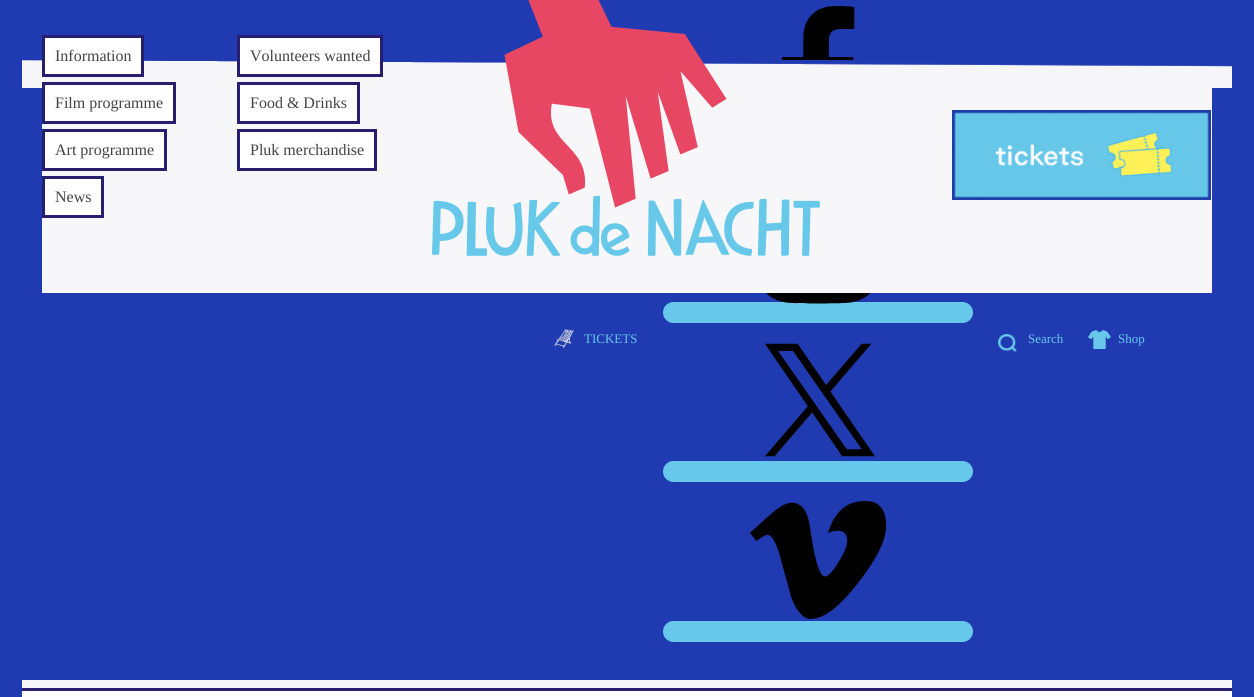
import math
import cairo

surface = cairo.ImageSurface(cairo.FORMAT_RGB24, 1254, 697)
ctx = cairo.Context(surface)
options = cairo.FontOptions()
options.set_hint_metrics(cairo.HINT_METRICS_OFF)
options.set_hint_style(cairo.HINT_STYLE_NONE)
ctx.set_font_options(options)
ctx.set_miter_limit(4)


def round_rect(x, y, w, h, r):
    ctx.new_sub_path()
    for i, (u, v) in enumerate([(x + w - r, y + h - r), (x + r, y + h - r), (x + r, y + r), (x + w - r, y + r)]):
        ctx.arc(u, v, r, i * math.pi / 2, (i + 1) * math.pi / 2)
    ctx.close_path()


def picture(path, x, y, w, h):
    ctx.save()
    ctx.set_source_surface(cairo.ImageSurface.create_from_png(path), x, y)
    ctx.rectangle(x, y, w, h)
    ctx.fill()
    ctx.restore()


ctx.set_source_rgb(0.125, 0.231, 0.694)
ctx.paint()
ctx.set_source_rgb(0.965, 0.965, 0.973)
ctx.rectangle(22, 680, 1210, 8)
ctx.fill()
ctx.rectangle(42, 88, 1170, 205)
ctx.fill()
picture("img2.png", 22, 60, 1210, 28)
ctx.set_source_rgb(1, 1, 1)
ctx.rectangle(43.5, 36.5, 99, 39)
ctx.fill_preserve()
ctx.set_source_rgb(0.153, 0.118, 0.439)
ctx.set_line_width(3)
ctx.stroke()
ctx.select_font_face("Liberation Serif")
ctx.set_font_size(16)
ctx.set_source_rgb(0.263, 0.263, 0.263)
ctx.move_to(55, 61)
ctx.show_text("Information")
ctx.set_source_rgb(1, 1, 1)
ctx.rectangle(238.5, 36.5, 143, 39)
ctx.fill_preserve()
ctx.set_source_rgb(0.153, 0.118, 0.439)
ctx.stroke()
ctx.set_source_rgb(0.263, 0.263, 0.263)
ctx.move_to(250, 61)
ctx.show_text("Volunteers wanted")
ctx.set_source_rgb(1, 1, 1)
ctx.rectangle(43.5, 83.5, 131, 39)
ctx.fill_preserve()
ctx.set_source_rgb(0.153, 0.118, 0.439)
ctx.stroke()
ctx.set_source_rgb(0.263, 0.263, 0.263)
ctx.move_to(55, 108)
ctx.show_text("Film programme")
ctx.set_source_rgb(1, 1, 1)
ctx.rectangle(238.5, 83.5, 120, 39)
ctx.fill_preserve()
ctx.set_source_rgb(0.153, 0.118, 0.439)
ctx.stroke()
ctx.set_source_rgb(0.263, 0.263, 0.263)
ctx.move_to(250, 108)
ctx.show_text("Food & Drinks")
ctx.set_source_rgb(1, 1, 1)
ctx.rectangle(43.5, 130.5, 122, 39)
ctx.fill_preserve()
ctx.set_source_rgb(0.153, 0.118, 0.439)
ctx.stroke()
ctx.set_source_rgb(0.263, 0.263, 0.263)
ctx.move_to(55, 155)
ctx.show_text("Art programme")
ctx.set_source_rgb(1, 1, 1)
ctx.rectangle(238.5, 130.5, 137, 39)
ctx.fill_preserve()
ctx.set_source_rgb(0.153, 0.118, 0.439)
ctx.stroke()
ctx.set_source_rgb(0.263, 0.263, 0.263)
ctx.move_to(250, 155)
ctx.show_text("Pluk merchandise")
ctx.set_source_rgb(1, 1, 1)
ctx.rectangle(43.5, 177.5, 59, 39)
ctx.fill_preserve()
ctx.set_source_rgb(0.153, 0.118, 0.439)
ctx.stroke()
ctx.set_source_rgb(0.263, 0.263, 0.263)
ctx.move_to(55, 202)
ctx.show_text("News")
picture("img5.png", 781, 6, 74, 54)
picture("img1.png", 432, 0, 388, 256)
picture("img3.png", 952, 110, 259, 90)
picture("img4.png", 554, 329, 20, 19)
ctx.set_font_size(13)
ctx.set_source_rgb(0.404, 0.784, 0.918)
ctx.move_to(584, 343)
ctx.show_text("TICKETS")
round_rect(663, 302, 310, 21, 10.5)
ctx.fill()
picture("img6.png", 766, 293, 105, 11)
picture("img7.png", 765, 343, 110, 114)
round_rect(663, 461, 310, 21, 10.5)
ctx.fill()
picture("img8.png", 750, 501, 137, 118)
round_rect(663, 621, 310, 21, 10.5)
ctx.fill()
picture("img9.png", 998, 334, 19, 18)
ctx.move_to(1028, 343)
ctx.show_text("Search")
picture("img10.png", 1088, 330, 23, 19)
ctx.move_to(1118, 343)
ctx.show_text("Shop")
ctx.set_source_rgb(0.153, 0.118, 0.439)
ctx.rectangle(22, 688, 1210, 3)
ctx.fill()
ctx.set_source_rgb(1, 1, 1)
ctx.rectangle(22, 691, 1210, 6)
ctx.fill()
surface.write_to_png("page.png")
